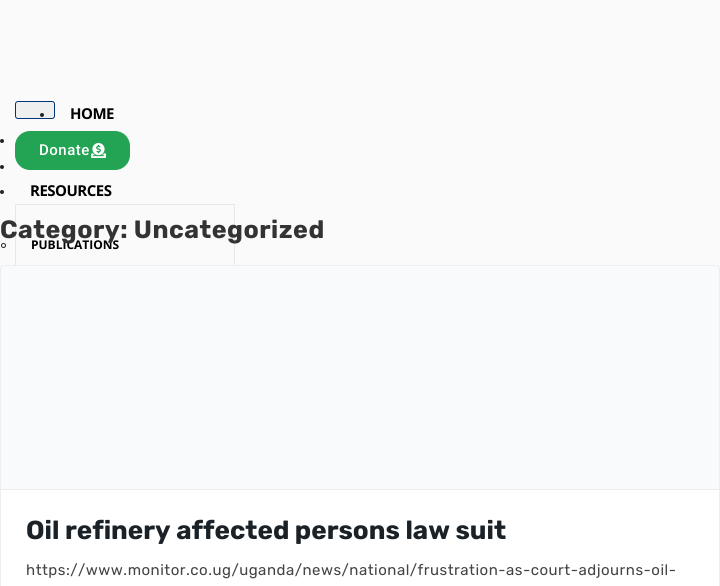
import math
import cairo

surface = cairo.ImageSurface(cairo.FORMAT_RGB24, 720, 586)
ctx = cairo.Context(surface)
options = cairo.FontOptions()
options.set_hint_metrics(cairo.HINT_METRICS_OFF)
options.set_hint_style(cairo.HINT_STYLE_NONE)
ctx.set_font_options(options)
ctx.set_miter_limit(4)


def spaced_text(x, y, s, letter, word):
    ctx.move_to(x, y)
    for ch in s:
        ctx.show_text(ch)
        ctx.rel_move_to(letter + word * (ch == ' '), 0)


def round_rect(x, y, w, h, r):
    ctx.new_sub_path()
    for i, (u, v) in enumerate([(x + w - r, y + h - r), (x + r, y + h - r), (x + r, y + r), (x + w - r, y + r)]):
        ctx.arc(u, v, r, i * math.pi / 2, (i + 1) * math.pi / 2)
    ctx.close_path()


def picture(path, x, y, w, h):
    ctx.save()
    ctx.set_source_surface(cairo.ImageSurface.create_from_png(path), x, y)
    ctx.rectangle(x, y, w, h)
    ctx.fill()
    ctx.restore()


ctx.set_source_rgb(0.98, 0.98, 0.98)
ctx.paint()
ctx.set_source_rgb(0.937, 0.937, 0.937)
round_rect(15.5, 101.5, 39, 17, 2.5)
ctx.fill_preserve()
ctx.set_source_rgb(0, 0.204, 0.471)
ctx.set_line_width(1)
ctx.stroke()
ctx.set_source_rgb(0.129, 0.145, 0.161)
ctx.arc(42, 115, 2, 0, 2 * math.pi)
ctx.fill()
ctx.select_font_face("Open Sans", cairo.FONT_SLANT_NORMAL, cairo.FONT_WEIGHT_BOLD)
ctx.set_font_size(15)
ctx.set_source_rgb(0, 0, 0)
spaced_text(70, 119, "HOME", -0.5, 0)
ctx.set_source_rgb(0.129, 0.145, 0.161)
ctx.new_path()
ctx.arc(2, 141, 2, 0, 2 * math.pi)
ctx.fill()
ctx.arc(2, 167, 2, 0, 2 * math.pi)
ctx.fill()
ctx.arc(2, 192, 2, 0, 2 * math.pi)
ctx.fill()
ctx.set_source_rgb(0, 0, 0)
spaced_text(30, 196, "RESOURCES", -0.5, 0)
ctx.rectangle(15.5, 204.5, 219, 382)
ctx.set_source_rgb(0.906, 0.906, 0.906)
ctx.stroke()
ctx.arc(3.5, 245.5, 2, 0, 2 * math.pi)
ctx.set_source_rgb(0.129, 0.145, 0.161)
ctx.stroke()
ctx.set_font_size(12)
ctx.set_source_rgb(0, 0, 0)
ctx.move_to(31, 249)
ctx.show_text("PUBLICATIONS")
ctx.set_source_rgb(0.137, 0.643, 0.333)
round_rect(15, 131, 115, 39, 15)
ctx.fill()
ctx.select_font_face("Roboto Medium")
ctx.set_font_size(15)
ctx.set_source_rgb(1, 1, 1)
spaced_text(39, 155, "Donate", 0.5, 0)
picture("img1.png", 91, 143, 15, 15)
ctx.select_font_face("Rubik", cairo.FONT_SLANT_NORMAL, cairo.FONT_WEIGHT_BOLD)
ctx.set_font_size(25)
ctx.set_source_rgb(0.2, 0.2, 0.2)
spaced_text(0, 238, "Category: Uncategorized", 0.5, 0)
ctx.set_source_rgb(1, 1, 1)
round_rect(0.5, 265.5, 719, 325, 3.5)
ctx.fill_preserve()
ctx.set_source_rgb(0.933, 0.933, 0.933)
ctx.stroke()
ctx.set_source_rgba(0.188, 0.263, 0.541, 0.03)
ctx.rectangle(1, 266, 718, 223)
ctx.fill()
ctx.set_source_rgb(0.925, 0.929, 0.937)
ctx.rectangle(1, 489, 718, 1)
ctx.fill()
ctx.set_font_size(26)
ctx.set_source_rgb(0.102, 0.133, 0.157)
ctx.move_to(26, 539)
ctx.show_text("Oil refinery affected persons law suit")
ctx.select_font_face("Rubik")
ctx.set_font_size(15)
ctx.set_source_rgb(0.267, 0.267, 0.267)
spaced_text(26, 575, "https://www.monitor.co.ug/uganda/news/national/frustration-as-court-adjourns-oil-", 0.5, 0)
surface.write_to_png("page.png")
